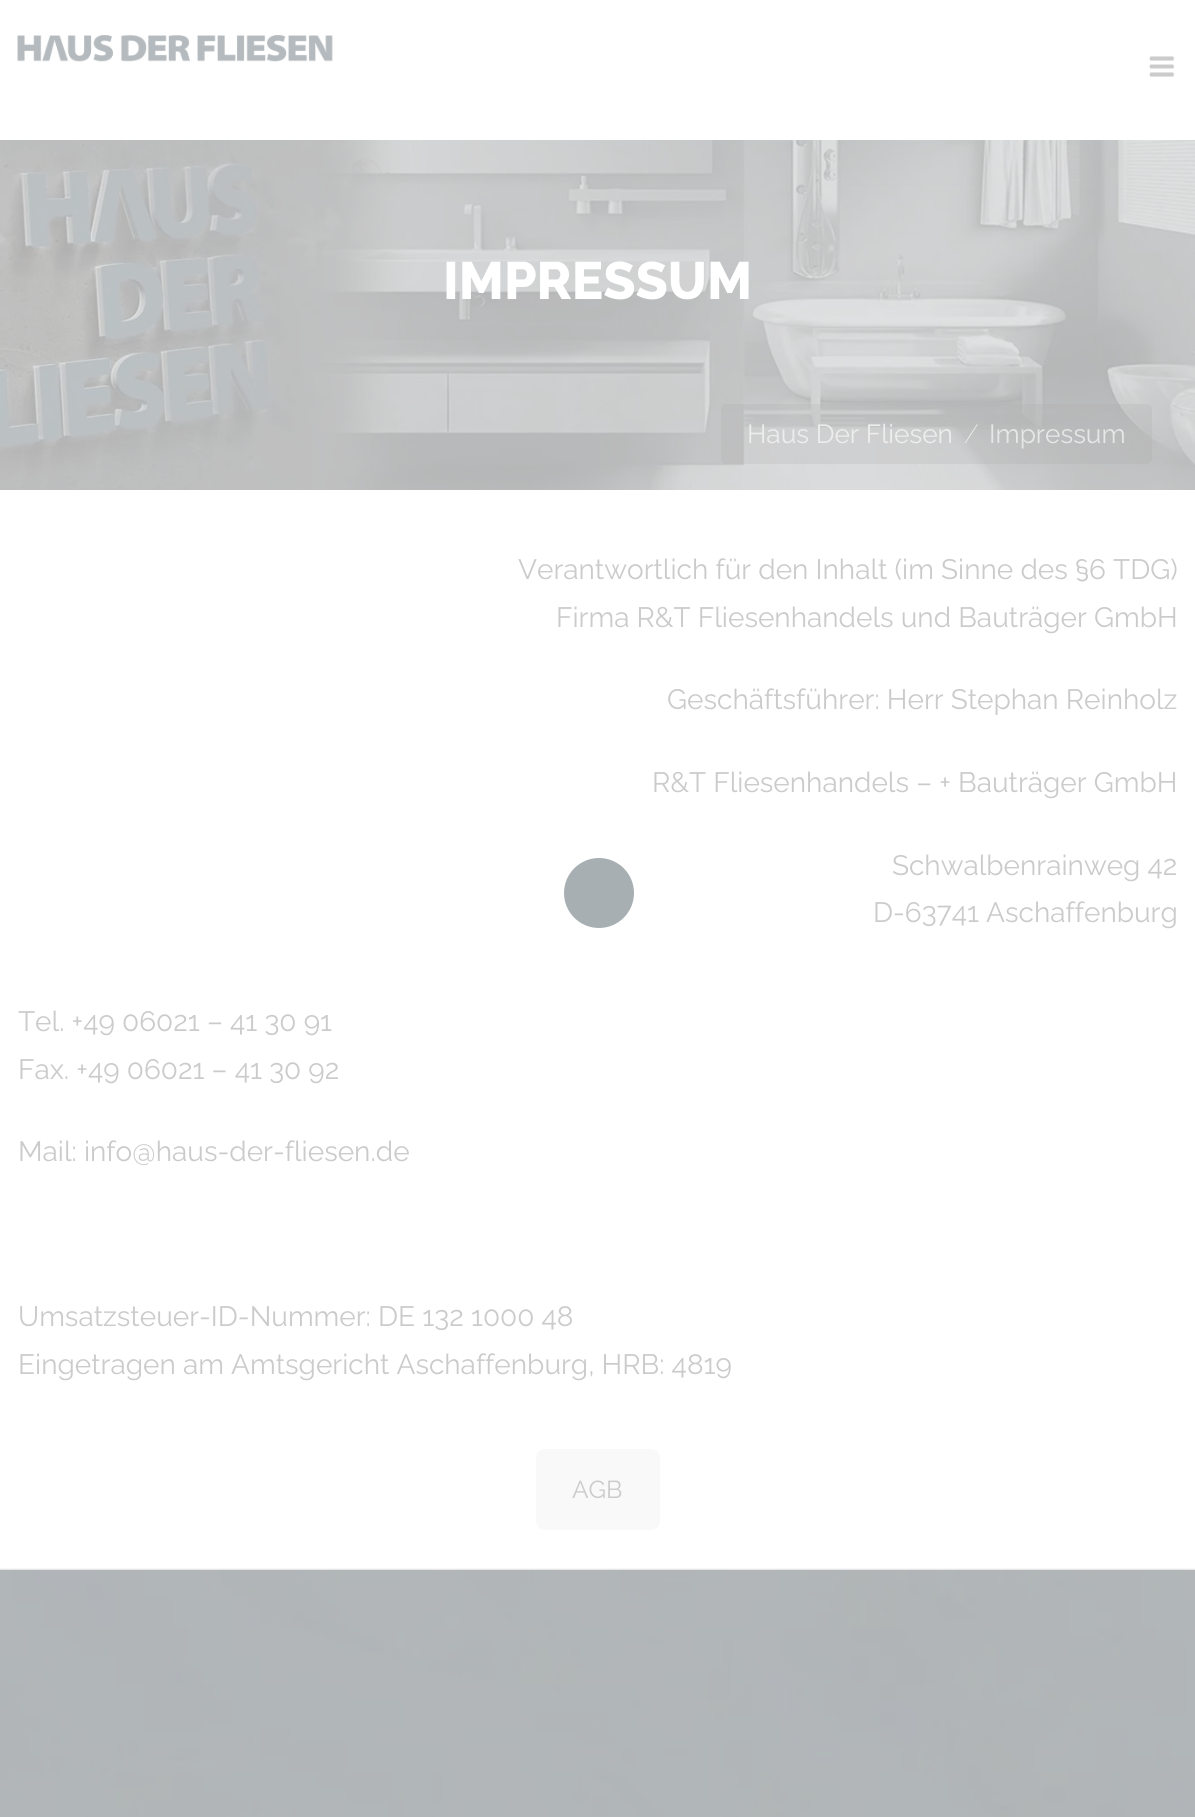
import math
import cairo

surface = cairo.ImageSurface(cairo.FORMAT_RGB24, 1195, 1817)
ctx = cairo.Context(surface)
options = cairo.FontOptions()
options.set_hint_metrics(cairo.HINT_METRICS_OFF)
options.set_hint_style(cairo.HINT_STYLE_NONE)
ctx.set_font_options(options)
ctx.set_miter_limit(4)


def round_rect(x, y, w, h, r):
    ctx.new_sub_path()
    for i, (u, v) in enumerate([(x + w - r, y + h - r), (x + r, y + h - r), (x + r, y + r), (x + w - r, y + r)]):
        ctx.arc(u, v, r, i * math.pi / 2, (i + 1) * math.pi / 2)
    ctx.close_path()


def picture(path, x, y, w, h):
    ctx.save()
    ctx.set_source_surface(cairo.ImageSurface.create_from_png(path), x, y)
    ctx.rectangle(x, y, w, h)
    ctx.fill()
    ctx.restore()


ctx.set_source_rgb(1, 1, 1)
ctx.paint()
picture("img1.png", 17, 35, 316, 27)
picture("img2.png", 1149, 56, 25, 21)
picture("img3.png", 0, 140, 1195, 350)
ctx.select_font_face("Raleway ExtraBold")
ctx.set_font_size(52.5)
ctx.set_source_rgb(1, 1, 1)
ctx.move_to(443, 299)
ctx.show_text("IMPRESSUM")
ctx.set_source_rgba(0.659, 0.659, 0.659, 0.2)
round_rect(721, 404, 431, 60, 5)
ctx.fill()
ctx.select_font_face("Raleway")
ctx.set_font_size(26.25)
ctx.set_source_rgb(0.929, 0.929, 0.929)
ctx.move_to(747, 443)
ctx.show_text("Haus Der Fliesen")
ctx.select_font_face("Raleway ExtraLight")
ctx.move_to(964, 443)
ctx.show_text("/")
ctx.select_font_face("Raleway")
ctx.set_source_rgb(0.902, 0.906, 0.906)
ctx.move_to(989, 443)
ctx.show_text("Impressum")
ctx.set_source_rgb(0.965, 0.965, 0.965)
ctx.rectangle(0, 1568, 1195, 2)
ctx.fill()
ctx.set_font_size(28)
ctx.set_source_rgb(0.796, 0.796, 0.796)
ctx.move_to(518, 579)
ctx.show_text("Verantwortlich für den Inhalt (im Sinne des §6 TDG)")
ctx.move_to(556, 627)
ctx.show_text("Firma R&T Fliesenhandels und Bauträger GmbH")
ctx.move_to(667, 709)
ctx.show_text("Geschäftsführer: Herr Stephan Reinholz")
ctx.move_to(652, 792)
ctx.show_text("R&T Fliesenhandels – + Bauträger GmbH")
ctx.move_to(892, 875)
ctx.show_text("Schwalbenrainweg 42")
ctx.move_to(873, 922)
ctx.show_text("D-63741 Aschaffenburg")
ctx.move_to(18, 1031)
ctx.show_text("Tel. +49 06021 – 41 30 91")
ctx.move_to(18, 1079)
ctx.show_text("Fax. +49 06021 – 41 30 92")
ctx.move_to(18, 1161)
ctx.show_text("Mail: info@haus-der-fliesen.de")
ctx.move_to(18, 1326)
ctx.show_text("Umsatzsteuer-ID-Nummer: DE 132 1000 48")
ctx.move_to(18, 1374)
ctx.show_text("Eingetragen am Amtsgericht Aschaffenburg, HRB: 4819")
ctx.set_source_rgb(0.973, 0.973, 0.973)
round_rect(536, 1449, 124, 81, 9)
ctx.fill()
ctx.set_font_size(24.5)
ctx.set_source_rgb(0.796, 0.796, 0.796)
ctx.move_to(572, 1498)
ctx.show_text("AGB")
picture("img4.png", 0, 1569, 1195, 248)
ctx.set_source_rgb(0.655, 0.686, 0.702)
ctx.arc(599, 893, 35, 0, 2 * math.pi)
ctx.fill()
surface.write_to_png("page.png")
